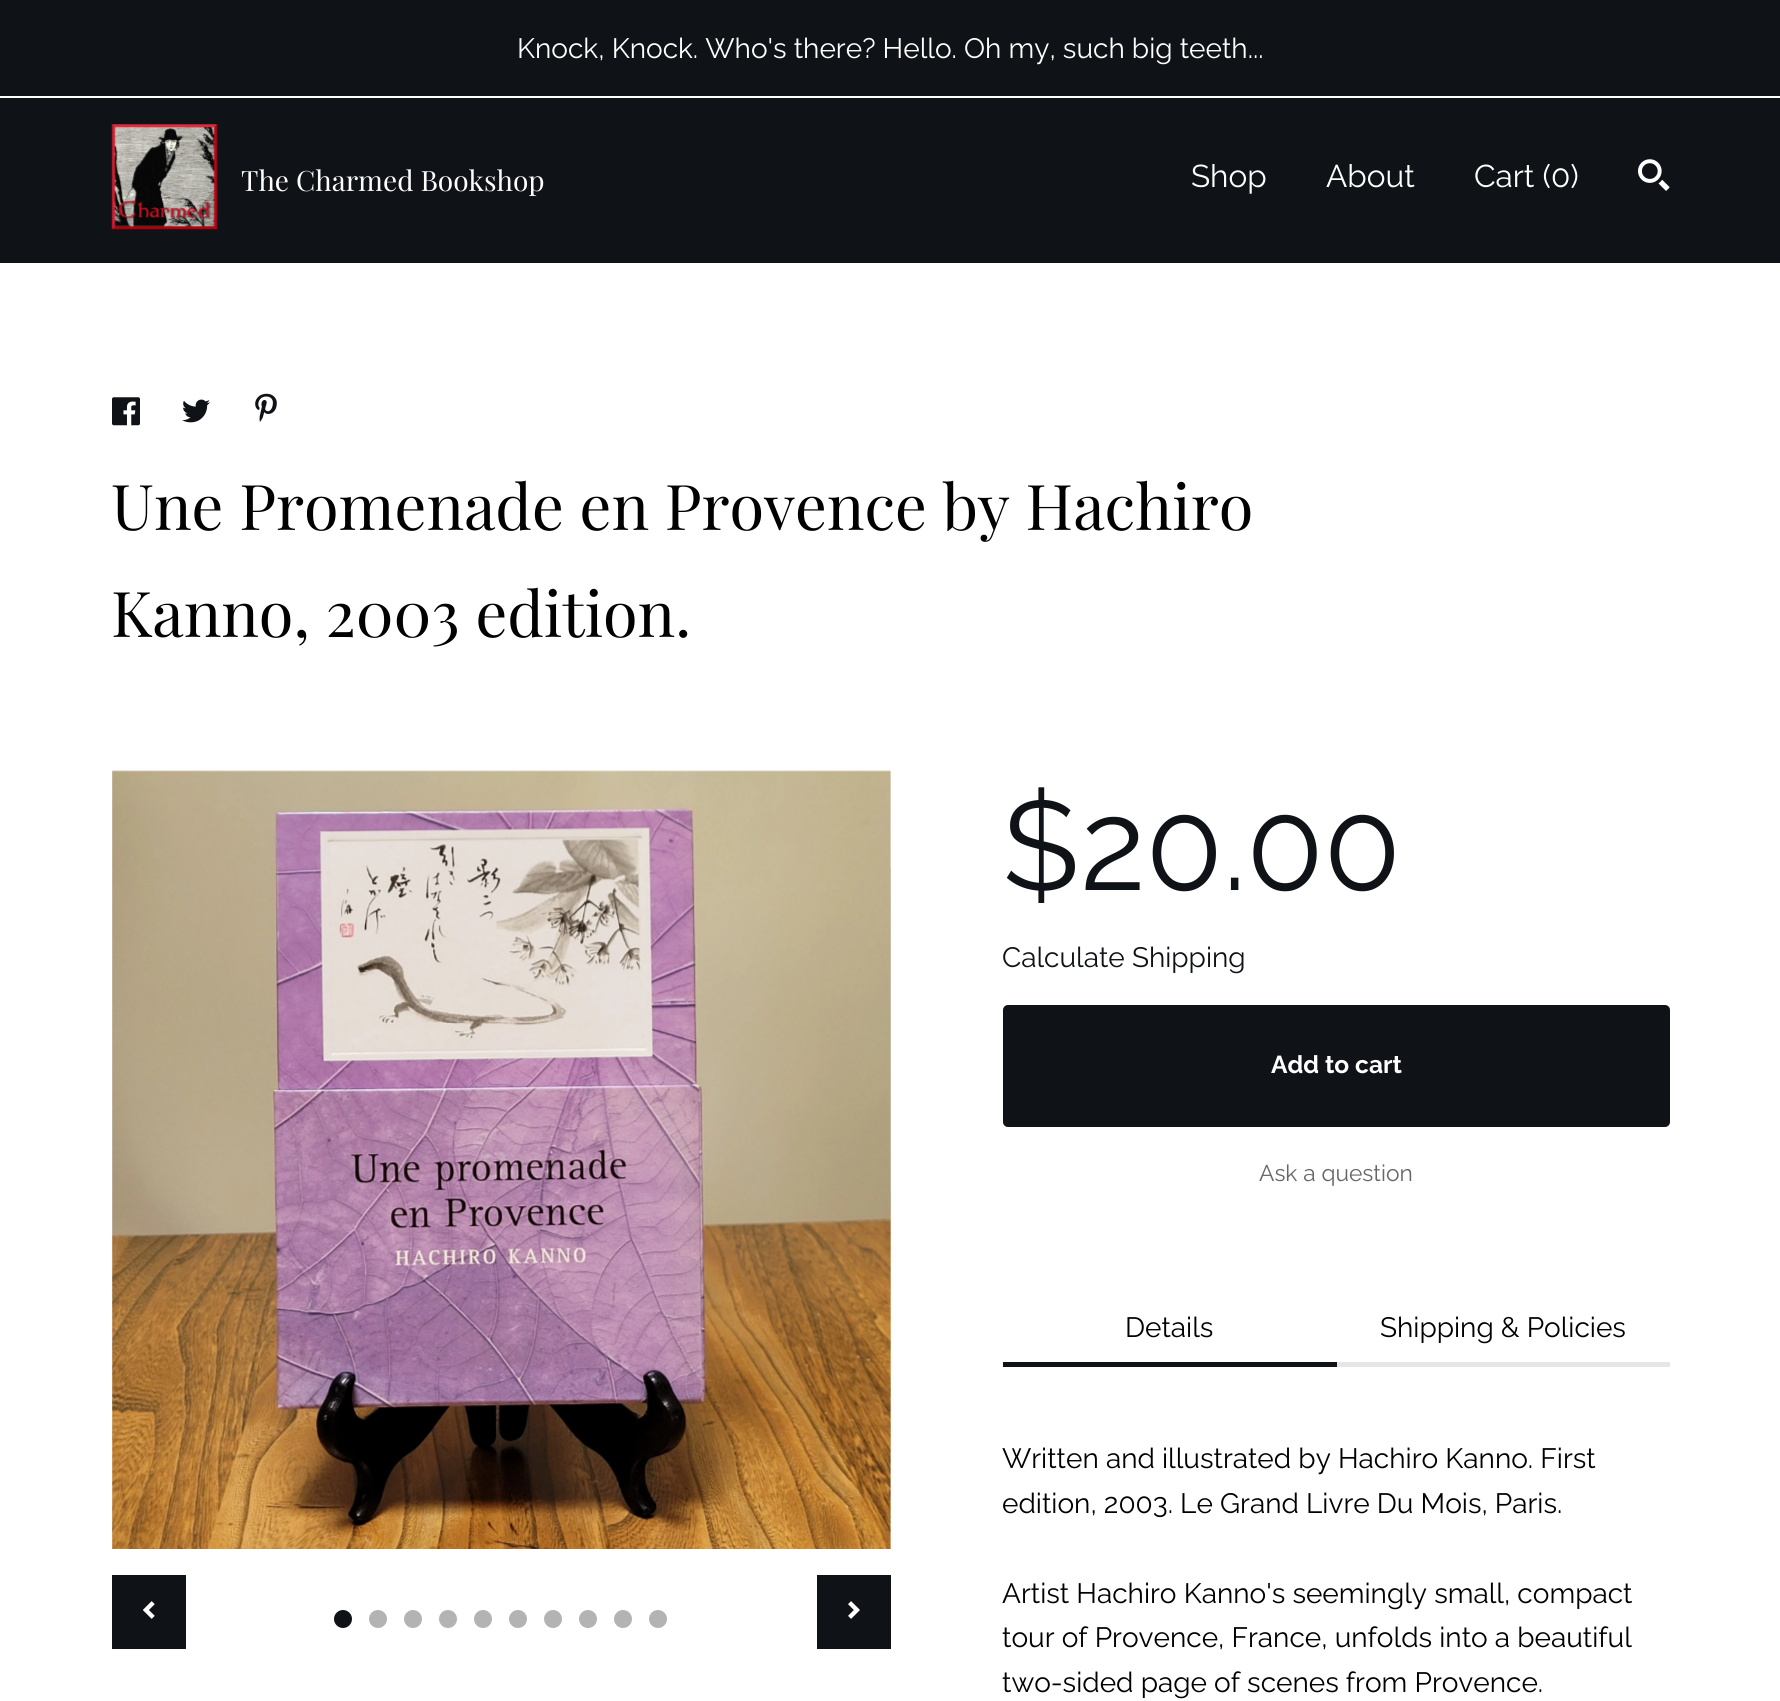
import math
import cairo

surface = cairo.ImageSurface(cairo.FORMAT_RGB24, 1780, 1701)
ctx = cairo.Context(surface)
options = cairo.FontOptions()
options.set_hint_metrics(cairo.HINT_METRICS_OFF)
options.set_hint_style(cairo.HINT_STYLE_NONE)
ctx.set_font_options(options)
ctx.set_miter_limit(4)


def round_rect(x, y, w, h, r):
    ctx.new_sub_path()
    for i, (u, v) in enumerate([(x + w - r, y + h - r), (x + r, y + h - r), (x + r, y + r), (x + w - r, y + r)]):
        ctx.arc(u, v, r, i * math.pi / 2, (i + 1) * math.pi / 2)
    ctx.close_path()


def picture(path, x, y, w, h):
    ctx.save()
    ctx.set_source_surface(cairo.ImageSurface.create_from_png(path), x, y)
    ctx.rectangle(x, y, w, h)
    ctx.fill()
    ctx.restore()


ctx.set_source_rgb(1, 1, 1)
ctx.paint()
ctx.set_source_rgb(0.059, 0.071, 0.09)
ctx.rectangle(0, 0, 1780, 96)
ctx.fill()
ctx.select_font_face("Raleway")
ctx.set_font_size(28)
ctx.set_source_rgb(1, 1, 1)
ctx.move_to(517, 58)
ctx.show_text("Knock, Knock. Who's there? Hello. Oh my, such big teeth...")
ctx.set_source_rgb(0.059, 0.071, 0.09)
ctx.rectangle(0, 98, 1780, 165)
ctx.fill()
picture("img1.png", 111, 124, 107, 106)
ctx.select_font_face("Playfair Display")
ctx.set_source_rgb(1, 1, 1)
ctx.move_to(241, 191)
ctx.show_text("The Charmed Bookshop")
ctx.select_font_face("Raleway")
ctx.set_font_size(31.5)
ctx.move_to(1191, 187)
ctx.show_text("Shop")
ctx.move_to(1326, 187)
ctx.show_text("About")
ctx.move_to(1474, 187)
ctx.show_text("Cart (0)")
picture("img2.png", 1638, 159, 32, 32)
picture("img3.png", 112, 397, 28, 29)
picture("img4.png", 182, 399, 28, 24)
picture("img5.png", 255, 393, 22, 29)
ctx.select_font_face("Playfair Display")
ctx.set_font_size(63)
ctx.set_source_rgb(0, 0, 0)
ctx.move_to(111, 530)
ctx.show_text("Une Promenade en Provence by Hachiro")
ctx.move_to(111, 637)
ctx.show_text("Kanno, 2003 edition.")
picture("img6.png", 112, 770, 779, 779)
picture("img7.png", 890, 868, 1, 585)
ctx.set_source_rgb(0.059, 0.071, 0.09)
ctx.rectangle(112, 1575, 74, 74)
ctx.fill()
picture("img8.png", 143, 1601, 12, 18)
ctx.arc(343, 1619, 9, 0, 2 * math.pi)
ctx.fill()
ctx.set_source_rgb(0.702, 0.702, 0.702)
ctx.arc(378, 1619, 9, 0, 2 * math.pi)
ctx.fill()
ctx.arc(413, 1619, 9, 0, 2 * math.pi)
ctx.fill()
ctx.arc(448, 1619, 9, 0, 2 * math.pi)
ctx.fill()
ctx.arc(483, 1619, 9, 0, 2 * math.pi)
ctx.fill()
ctx.arc(518, 1619, 9, 0, 2 * math.pi)
ctx.fill()
ctx.arc(553, 1619, 9, 0, 2 * math.pi)
ctx.fill()
ctx.arc(588, 1619, 9, 0, 2 * math.pi)
ctx.fill()
ctx.arc(623, 1619, 9, 0, 2 * math.pi)
ctx.fill()
ctx.arc(658, 1619, 9, 0, 2 * math.pi)
ctx.fill()
ctx.set_source_rgb(0.059, 0.071, 0.09)
ctx.rectangle(817, 1575, 74, 74)
ctx.fill()
picture("img9.png", 848, 1601, 12, 18)
ctx.select_font_face("Raleway")
ctx.set_font_size(126)
ctx.move_to(1002, 890)
ctx.show_text("$20.00")
ctx.set_font_size(28)
ctx.move_to(1002, 967)
ctx.show_text("Calculate Shipping")
round_rect(1003, 1005, 667, 122, 5)
ctx.fill()
ctx.select_font_face("Raleway", cairo.FONT_SLANT_NORMAL, cairo.FONT_WEIGHT_BOLD)
ctx.set_font_size(24.5)
ctx.set_source_rgb(1, 1, 1)
ctx.move_to(1271, 1073)
ctx.show_text("Add to cart")
ctx.select_font_face("Raleway")
ctx.set_font_size(22.75)
ctx.set_source_rgb(0.4, 0.4, 0.4)
ctx.move_to(1259, 1181)
ctx.show_text("Ask a question")
ctx.set_source_rgb(0.059, 0.071, 0.09)
ctx.rectangle(1003, 1362, 334, 5)
ctx.fill()
ctx.set_font_size(28)
ctx.set_source_rgb(0, 0, 0)
ctx.move_to(1125, 1337)
ctx.show_text("Details")
ctx.set_source_rgb(0.902, 0.902, 0.902)
ctx.rectangle(1337, 1362, 333, 5)
ctx.fill()
ctx.set_source_rgb(0, 0, 0)
ctx.move_to(1380, 1337)
ctx.show_text("Shipping & Policies")
ctx.move_to(1002, 1468)
ctx.show_text("Written and illustrated by Hachiro Kanno. First")
ctx.move_to(1002, 1513)
ctx.show_text("edition, 2003. Le Grand Livre Du Mois, Paris.")
ctx.move_to(1002, 1603)
ctx.show_text("Artist Hachiro Kanno's seemingly small, compact")
ctx.move_to(1002, 1647)
ctx.show_text("tour of Provence, France, unfolds into a beautiful")
ctx.move_to(1002, 1692)
ctx.show_text("two-sided page of scenes from Provence.")
surface.write_to_png("page.png")
